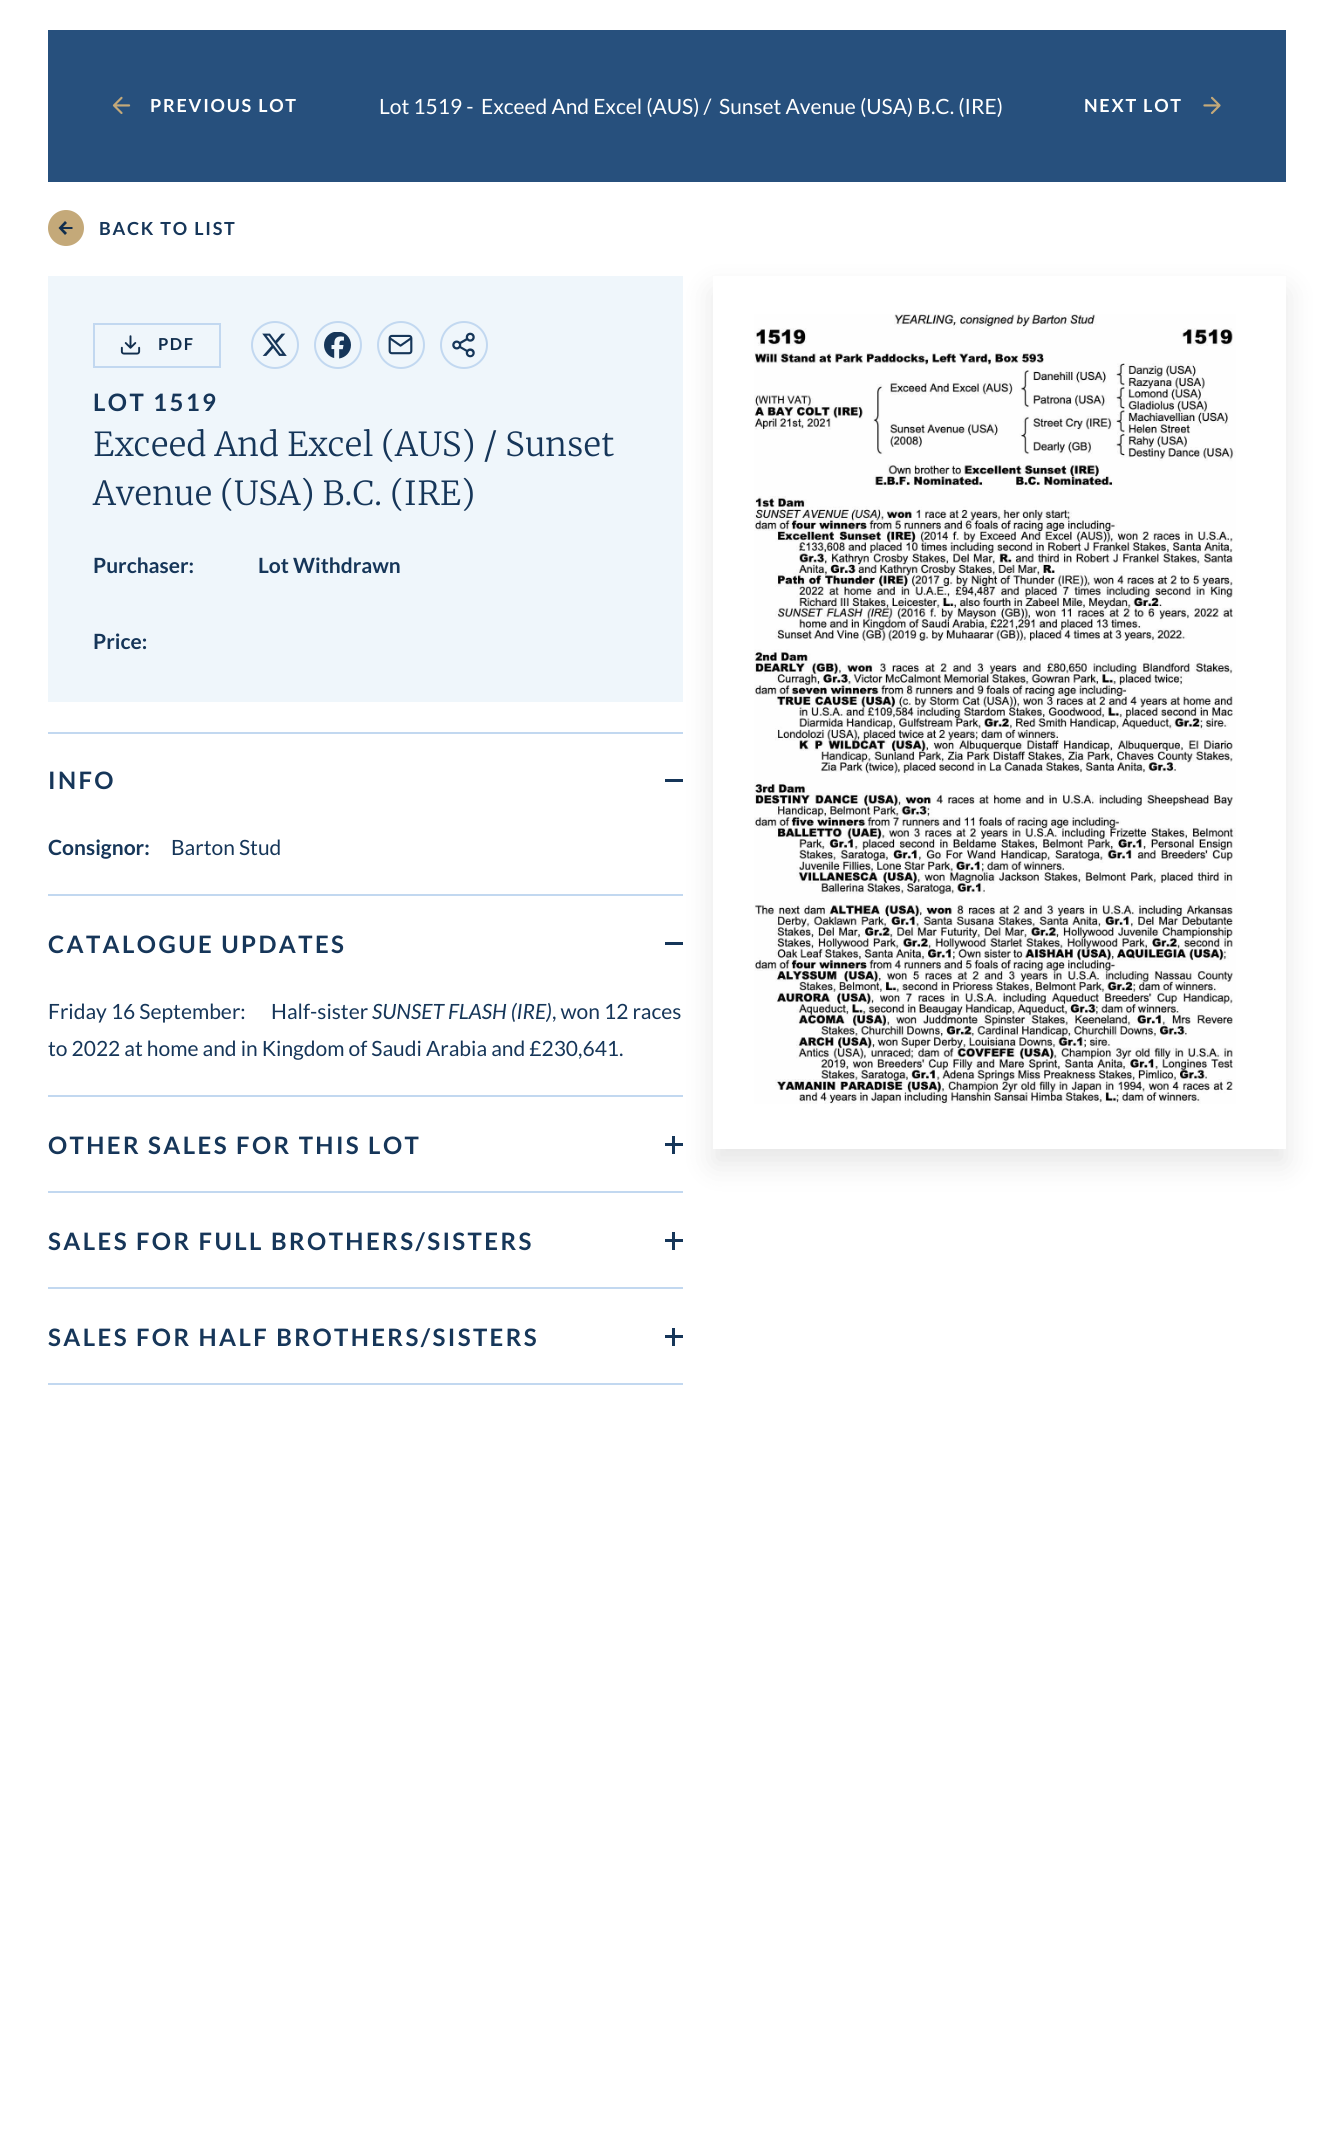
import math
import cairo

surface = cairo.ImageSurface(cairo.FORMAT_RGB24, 1333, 2150)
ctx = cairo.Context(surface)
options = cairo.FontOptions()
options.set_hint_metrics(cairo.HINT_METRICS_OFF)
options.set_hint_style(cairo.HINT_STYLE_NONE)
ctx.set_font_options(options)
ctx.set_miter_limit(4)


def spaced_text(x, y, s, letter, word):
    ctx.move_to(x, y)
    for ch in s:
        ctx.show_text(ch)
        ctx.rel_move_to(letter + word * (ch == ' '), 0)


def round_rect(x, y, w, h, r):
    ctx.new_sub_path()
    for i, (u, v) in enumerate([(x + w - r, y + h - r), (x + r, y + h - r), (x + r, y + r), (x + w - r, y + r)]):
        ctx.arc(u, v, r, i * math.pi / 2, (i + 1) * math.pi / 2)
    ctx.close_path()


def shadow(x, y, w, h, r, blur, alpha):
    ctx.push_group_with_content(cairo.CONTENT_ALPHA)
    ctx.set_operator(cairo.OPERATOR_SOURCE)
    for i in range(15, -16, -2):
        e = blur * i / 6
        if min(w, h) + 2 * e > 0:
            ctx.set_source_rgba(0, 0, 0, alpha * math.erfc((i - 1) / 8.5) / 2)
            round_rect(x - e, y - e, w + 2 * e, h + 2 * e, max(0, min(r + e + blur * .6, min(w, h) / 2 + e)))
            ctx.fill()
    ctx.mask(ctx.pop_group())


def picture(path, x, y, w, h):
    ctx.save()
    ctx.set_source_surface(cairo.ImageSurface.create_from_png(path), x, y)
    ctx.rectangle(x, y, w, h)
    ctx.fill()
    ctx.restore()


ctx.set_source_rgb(1, 1, 1)
ctx.paint()
ctx.set_source_rgb(0.153, 0.314, 0.49)
ctx.rectangle(48, 30, 1238, 152)
ctx.fill()
picture("img1.png", 112, 96, 19, 18)
ctx.select_font_face("Lato", cairo.FONT_SLANT_NORMAL, cairo.FONT_WEIGHT_BOLD)
ctx.set_font_size(18)
ctx.set_source_rgb(1, 1, 1)
spaced_text(150, 112, "PREVIOUS LOT", 1.75, 0)
ctx.select_font_face("Lato")
ctx.set_font_size(21)
ctx.move_to(379, 114)
ctx.show_text("Lot 1519 -")
ctx.move_to(481, 114)
ctx.show_text("Exceed And Excel (AUS) /")
ctx.move_to(719, 114)
ctx.show_text("Sunset Avenue (USA) B.C. (IRE)")
ctx.select_font_face("Lato", cairo.FONT_SLANT_NORMAL, cairo.FONT_WEIGHT_BOLD)
ctx.set_font_size(18)
spaced_text(1084, 112, "NEXT LOT", 1.75, 0)
picture("img2.png", 1203, 96, 18, 18)
ctx.set_source_rgb(0.769, 0.663, 0.475)
ctx.arc(66, 228, 18, 0, 2 * math.pi)
ctx.fill()
ctx.set_source_rgb(0.067, 0.18, 0.302)
ctx.new_path()
ctx.move_to(72.5, 227)
ctx.line_to(63, 227)
ctx.line_to(67, 223)
ctx.line_to(65, 221)
ctx.line_to(58.5, 228)
ctx.line_to(65, 235)
ctx.line_to(67, 233)
ctx.line_to(63, 229)
ctx.line_to(72.5, 229)
ctx.close_path()
ctx.fill()
ctx.set_source_rgb(0.086, 0.212, 0.349)
spaced_text(99, 235, "BACK TO LIST", 1.75, 0)
ctx.set_source_rgb(0.937, 0.961, 0.984)
ctx.rectangle(48, 276, 635, 426)
ctx.fill()
ctx.rectangle(94, 324, 126, 43)
ctx.set_source_rgb(0.761, 0.847, 0.941)
ctx.stroke()
picture("img3.png", 120, 335, 21, 20)
ctx.set_font_size(16.5)
ctx.set_source_rgb(0.067, 0.18, 0.302)
spaced_text(158, 350, "PDF", 1.5, 0)
ctx.new_path()
ctx.arc(275, 345, 23, 0, 2 * math.pi)
ctx.set_source_rgb(0.761, 0.847, 0.941)
ctx.stroke()
picture("img4.png", 262, 333, 25, 23)
ctx.arc(338, 345, 23, 0, 2 * math.pi)
ctx.stroke()
picture("img5.png", 324, 332, 27, 27)
ctx.arc(401, 345, 23, 0, 2 * math.pi)
ctx.stroke()
picture("img6.png", 388, 334, 25, 21)
ctx.arc(464, 345, 23, 0, 2 * math.pi)
ctx.stroke()
picture("img7.png", 452, 332, 23, 26)
ctx.set_font_size(24)
ctx.set_source_rgb(0.086, 0.212, 0.349)
spaced_text(93, 411, "LOT 1519", 2.4, 0)
ctx.select_font_face("Merriweather Light")
ctx.set_font_size(33)
ctx.move_to(93, 456)
ctx.show_text("Exceed And Excel (AUS) / Sunset")
ctx.move_to(93, 505)
ctx.show_text("Avenue (USA) B.C. (IRE)")
ctx.select_font_face("Lato", cairo.FONT_SLANT_NORMAL, cairo.FONT_WEIGHT_BOLD)
ctx.set_font_size(21)
ctx.move_to(93, 573)
ctx.show_text("Purchaser:")
ctx.move_to(258, 573)
ctx.show_text("Lot Withdrawn")
ctx.move_to(93, 649)
ctx.show_text("Price:")
ctx.save()
ctx.set_fill_rule(cairo.FILL_RULE_EVEN_ODD)
ctx.new_path()
ctx.move_to(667, 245)
ctx.line_to(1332, 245)
ctx.line_to(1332, 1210)
ctx.line_to(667, 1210)
ctx.close_path()
ctx.move_to(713, 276)
ctx.line_to(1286, 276)
ctx.line_to(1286, 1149)
ctx.line_to(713, 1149)
ctx.close_path()
ctx.clip()
ctx.set_source_rgb(0, 0, 0)
shadow(713, 291, 573, 873, 0, 15, 0.1)
ctx.restore()
picture("img8.png", 754, 314, 482, 790)
ctx.set_source_rgb(0.761, 0.847, 0.941)
ctx.rectangle(48, 732, 635, 2)
ctx.fill()
ctx.set_font_size(24)
ctx.set_source_rgb(0.086, 0.212, 0.349)
spaced_text(48, 789, "INFO", 2.4, 0)
ctx.rectangle(665, 779, 18, 3)
ctx.fill()
ctx.set_font_size(21)
ctx.move_to(48, 855)
ctx.show_text("Consignor:")
ctx.select_font_face("Lato")
ctx.move_to(171, 855)
ctx.show_text("Barton Stud")
ctx.set_source_rgb(0.761, 0.847, 0.941)
ctx.rectangle(48, 894, 635, 2)
ctx.fill()
ctx.select_font_face("Lato", cairo.FONT_SLANT_NORMAL, cairo.FONT_WEIGHT_BOLD)
ctx.set_font_size(24)
ctx.set_source_rgb(0.086, 0.212, 0.349)
spaced_text(48, 953, "CATALOGUE UPDATES", 2.4, 0)
ctx.rectangle(665, 942, 18, 3)
ctx.fill()
ctx.select_font_face("Lato")
ctx.set_font_size(21)
ctx.move_to(48, 1019)
ctx.show_text("Friday 16 September:")
ctx.move_to(271, 1019)
ctx.show_text("Half-sister")
ctx.select_font_face("Lato", cairo.FONT_SLANT_ITALIC)
ctx.move_to(372, 1019)
ctx.show_text("SUNSET FLASH (IRE)")
ctx.select_font_face("Lato")
ctx.move_to(552, 1019)
ctx.show_text(", won 12 races")
ctx.move_to(48, 1056)
ctx.show_text("to 2022 at home and in Kingdom of Saudi Arabia and £230,641.")
ctx.set_source_rgb(0.761, 0.847, 0.941)
ctx.rectangle(48, 1095, 635, 2)
ctx.fill()
ctx.select_font_face("Lato", cairo.FONT_SLANT_NORMAL, cairo.FONT_WEIGHT_BOLD)
ctx.set_font_size(24)
ctx.set_source_rgb(0.086, 0.212, 0.349)
spaced_text(48, 1154, "OTHER SALES FOR THIS LOT", 2.4, 0)
ctx.rectangle(665, 1143, 18, 3)
ctx.fill()
ctx.rectangle(672, 1136, 3, 18)
ctx.fill()
ctx.set_source_rgb(0.761, 0.847, 0.941)
ctx.rectangle(48, 1191, 635, 2)
ctx.fill()
ctx.set_source_rgb(0.086, 0.212, 0.349)
spaced_text(48, 1250, "SALES FOR FULL BROTHERS/SISTERS", 2.4, 0)
ctx.rectangle(665, 1239, 18, 3)
ctx.fill()
ctx.rectangle(672, 1232, 3, 18)
ctx.fill()
ctx.set_source_rgb(0.761, 0.847, 0.941)
ctx.rectangle(48, 1287, 635, 2)
ctx.fill()
ctx.set_source_rgb(0.086, 0.212, 0.349)
spaced_text(48, 1346, "SALES FOR HALF BROTHERS/SISTERS", 2.4, 0)
ctx.rectangle(665, 1335, 18, 3)
ctx.fill()
ctx.rectangle(672, 1328, 3, 18)
ctx.fill()
ctx.set_source_rgb(0.761, 0.847, 0.941)
ctx.rectangle(48, 1383, 635, 2)
ctx.fill()
surface.write_to_png("page.png")
